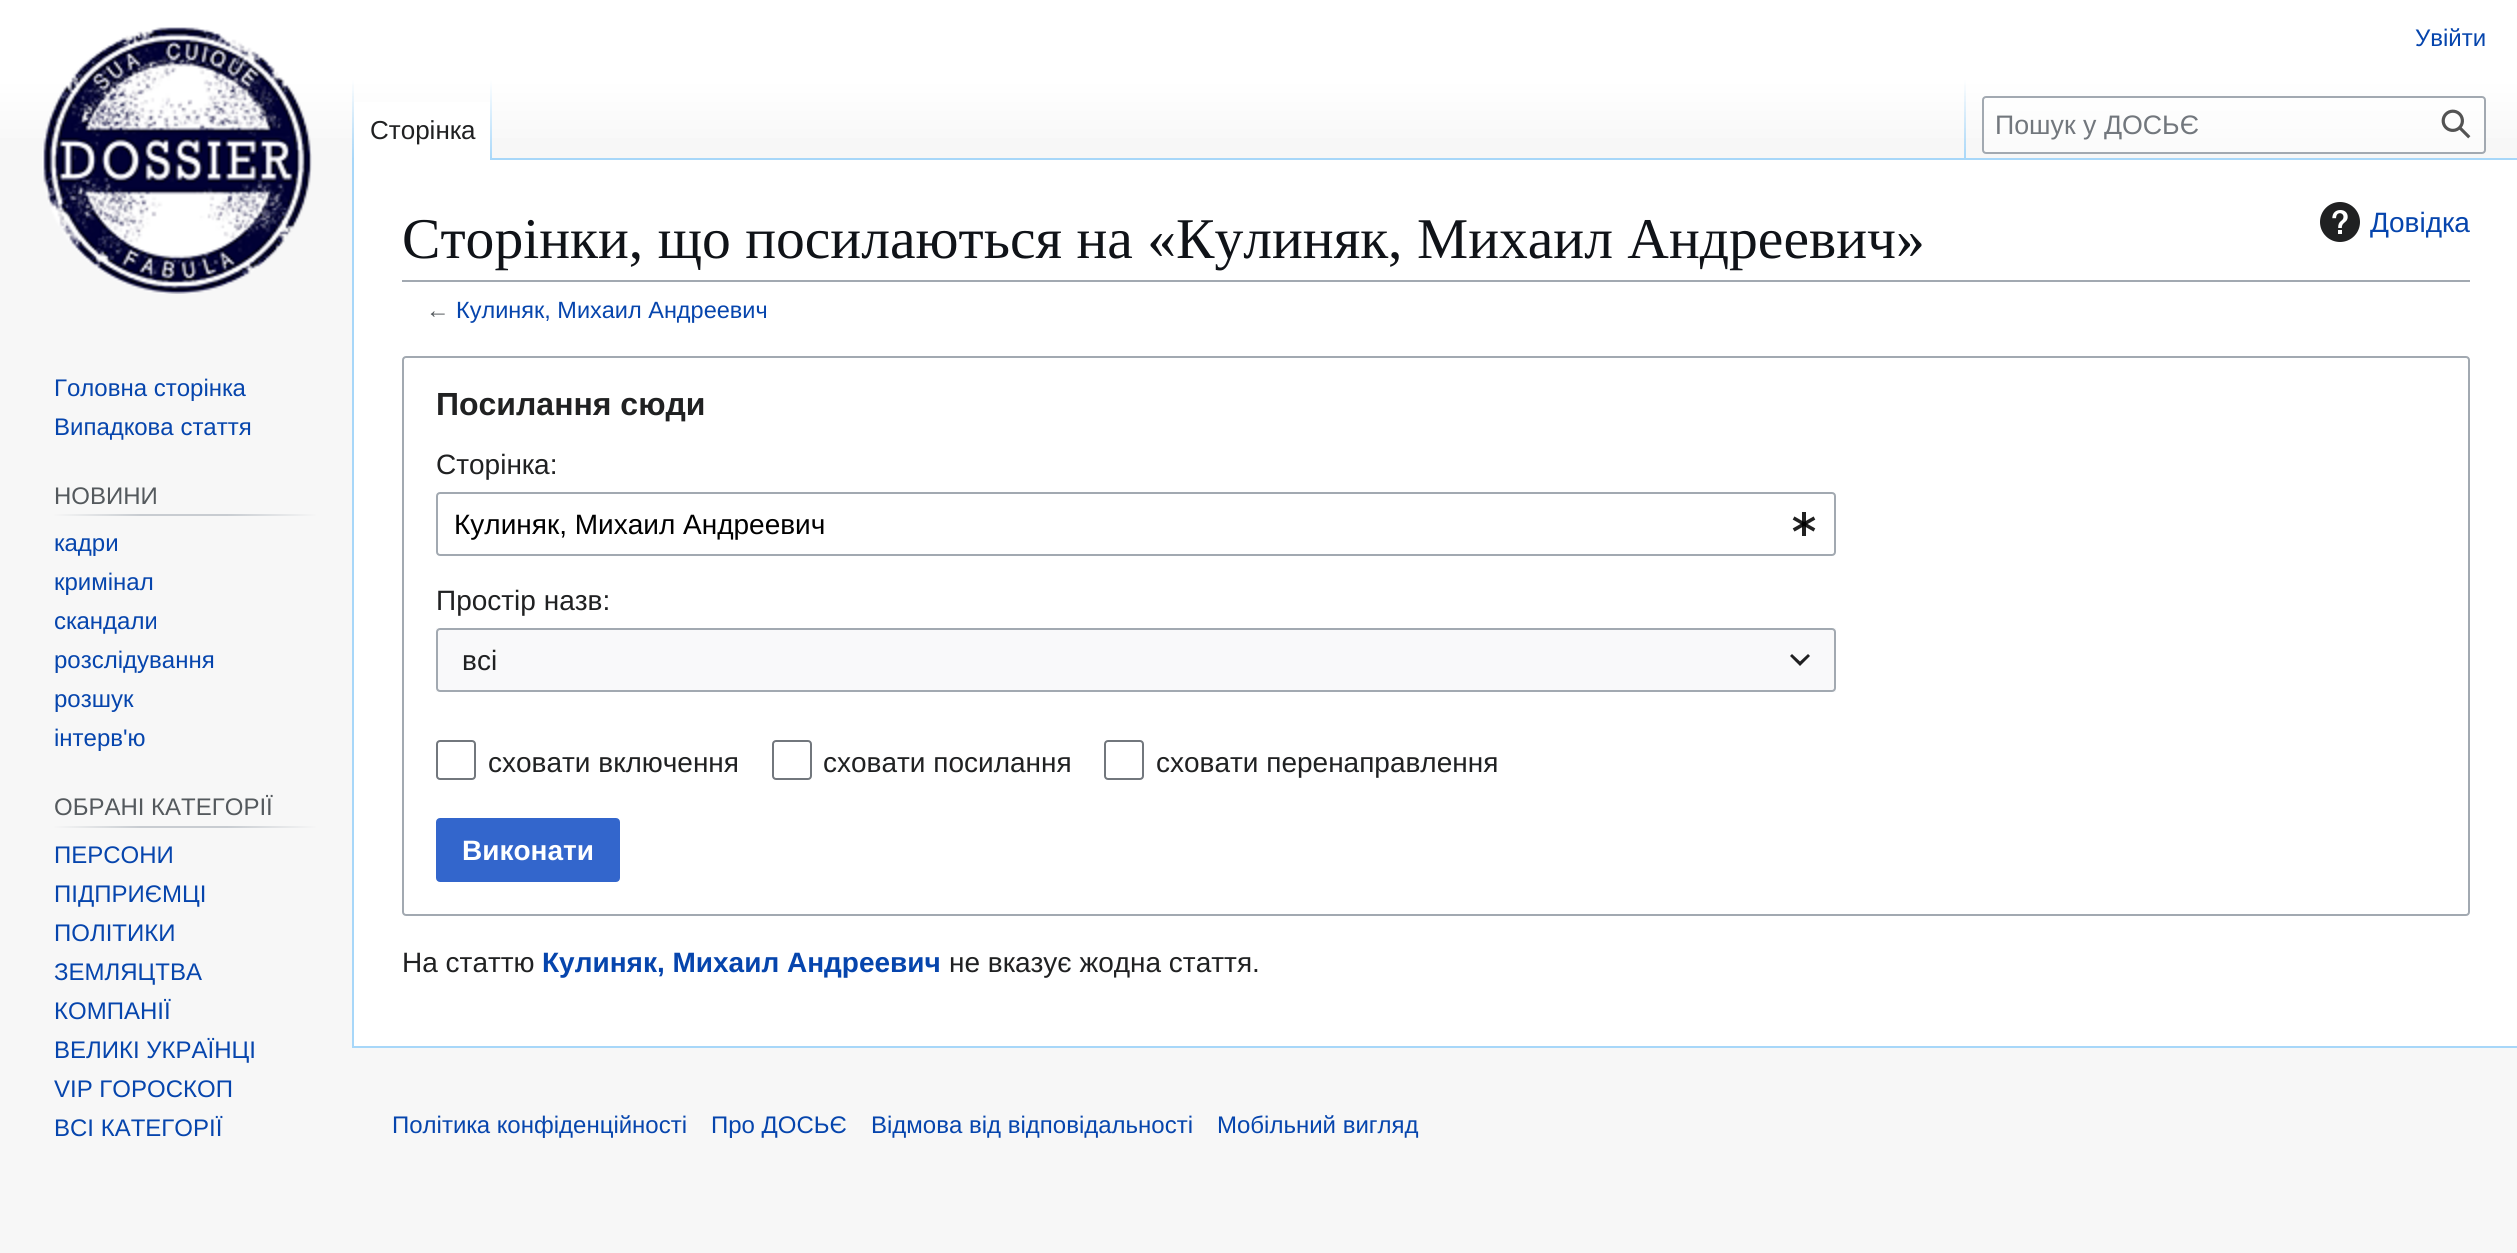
import math
import cairo

surface = cairo.ImageSurface(cairo.FORMAT_RGB24, 2517, 1253)
ctx = cairo.Context(surface)
options = cairo.FontOptions()
options.set_hint_metrics(cairo.HINT_METRICS_OFF)
options.set_hint_style(cairo.HINT_STYLE_NONE)
ctx.set_font_options(options)
ctx.set_miter_limit(4)


def round_rect(x, y, w, h, r):
    ctx.new_sub_path()
    for i, (u, v) in enumerate([(x + w - r, y + h - r), (x + r, y + h - r), (x + r, y + r), (x + w - r, y + r)]):
        ctx.arc(u, v, r, i * math.pi / 2, (i + 1) * math.pi / 2)
    ctx.close_path()


def picture(path, x, y, w, h):
    ctx.save()
    ctx.set_source_surface(cairo.ImageSurface.create_from_png(path), x, y)
    ctx.rectangle(x, y, w, h)
    ctx.fill()
    ctx.restore()


ctx.set_source_rgb(0.965, 0.965, 0.965)
ctx.paint()
gradient = cairo.LinearGradient(1259, 0, 1259, 160)
gradient.add_color_stop_rgba(0.5, 1, 1, 1, 1)
gradient.add_color_stop_rgba(1, 0.965, 0.965, 0.965, 1)
ctx.set_source(gradient)
ctx.rectangle(0, 0, 2517, 138)
ctx.fill()
ctx.select_font_face("Liberation Sans")
ctx.set_font_size(24)
ctx.set_source_rgb(0.024, 0.271, 0.678)
ctx.move_to(2415, 46)
ctx.show_text("Увійти")
ctx.set_source_rgb(0.655, 0.843, 0.976)
ctx.rectangle(352, 1046, 2165, 2)
ctx.fill()
ctx.rectangle(352, 158, 2, 890)
ctx.fill()
gradient = cairo.LinearGradient(353, 80, 353, 160)
gradient.add_color_stop_rgba(0, 0.655, 0.843, 0.976, 0)
gradient.add_color_stop_rgba(1, 0.655, 0.843, 0.976, 1)
ctx.set_source(gradient)
ctx.rectangle(352, 80, 2, 80)
ctx.fill()
ctx.set_source_rgb(1, 1, 1)
ctx.rectangle(354, 102, 136, 58)
ctx.fill()
gradient = cairo.LinearGradient(491, 80, 491, 160)
gradient.add_color_stop_rgba(0, 1, 1, 1, 1)
gradient.add_color_stop_rgba(1, 0.655, 0.843, 0.976, 1)
ctx.set_source(gradient)
ctx.rectangle(490, 80, 2, 80)
ctx.fill()
ctx.set_font_size(26)
ctx.set_source_rgb(0.125, 0.129, 0.133)
ctx.move_to(370, 139)
ctx.show_text("Сторінка")
ctx.set_source_rgb(0.655, 0.843, 0.976)
ctx.rectangle(492, 158, 2025, 2)
ctx.fill()
gradient = cairo.LinearGradient(1965, 80, 1965, 160)
gradient.add_color_stop_rgba(0, 0.655, 0.843, 0.976, 0)
gradient.add_color_stop_rgba(1, 0.655, 0.843, 0.976, 1)
ctx.set_source(gradient)
ctx.rectangle(1964, 80, 2, 80)
ctx.fill()
ctx.set_source_rgba(1, 1, 1, 0.5)
round_rect(1983, 97, 502, 56, 3)
ctx.fill_preserve()
ctx.set_source_rgb(0.635, 0.663, 0.694)
ctx.stroke()
ctx.set_font_size(26.75)
ctx.set_source_rgb(0.447, 0.467, 0.49)
ctx.move_to(1995, 134)
ctx.show_text("Пошук у ДОСЬЄ")
picture("img1.png", 2441, 109, 30, 30)
picture("img2.png", 42, 27, 270, 267)
ctx.set_font_size(24)
ctx.set_source_rgb(0.024, 0.271, 0.678)
ctx.move_to(54, 396)
ctx.show_text("Головна сторінка")
ctx.move_to(54, 435)
ctx.show_text("Випадкова стаття")
gradient = cairo.LinearGradient(54, 515, 316, 515)
gradient.add_color_stop_rgba(0, 0.965, 0.965, 0.965, 1)
gradient.add_color_stop_rgba(0.33, 0.784, 0.8, 0.82, 1)
gradient.add_color_stop_rgba(0.66, 0.784, 0.8, 0.82, 1)
gradient.add_color_stop_rgba(1, 0.965, 0.965, 0.965, 1)
ctx.set_source(gradient)
ctx.rectangle(54, 514, 262, 2)
ctx.fill()
ctx.set_source_rgb(0.329, 0.349, 0.365)
ctx.move_to(54, 504)
ctx.show_text("НОВИНИ")
ctx.set_source_rgb(0.024, 0.271, 0.678)
ctx.move_to(54, 551)
ctx.show_text("кадри")
ctx.move_to(54, 590)
ctx.show_text("кримінал")
ctx.move_to(54, 629)
ctx.show_text("скандали")
ctx.move_to(54, 668)
ctx.show_text("розслідування")
ctx.move_to(54, 707)
ctx.show_text("розшук")
ctx.move_to(54, 746)
ctx.show_text("інтерв'ю")
gradient = cairo.LinearGradient(54, 827, 316, 827)
gradient.add_color_stop_rgba(0, 0.965, 0.965, 0.965, 1)
gradient.add_color_stop_rgba(0.33, 0.784, 0.8, 0.82, 1)
gradient.add_color_stop_rgba(0.66, 0.784, 0.8, 0.82, 1)
gradient.add_color_stop_rgba(1, 0.965, 0.965, 0.965, 1)
ctx.set_source(gradient)
ctx.rectangle(54, 826, 262, 2)
ctx.fill()
ctx.set_source_rgb(0.329, 0.349, 0.365)
ctx.move_to(54, 815)
ctx.show_text("ОБРАНІ КАТЕГОРІЇ")
ctx.set_source_rgb(0.024, 0.271, 0.678)
ctx.move_to(54, 863)
ctx.show_text("ПЕРСОНИ")
ctx.move_to(54, 902)
ctx.show_text("ПІДПРИЄМЦІ")
ctx.move_to(54, 941)
ctx.show_text("ПОЛІТИКИ")
ctx.move_to(54, 980)
ctx.show_text("ЗЕМЛЯЦТВА")
ctx.move_to(54, 1019)
ctx.show_text("КОМПАНІЇ")
ctx.move_to(54, 1058)
ctx.show_text("ВЕЛИКІ УКРАЇНЦІ")
ctx.move_to(54, 1097)
ctx.show_text("VIP ГОРОСКОП")
ctx.move_to(54, 1136)
ctx.show_text("ВСІ КАТЕГОРІЇ")
ctx.set_source_rgb(1, 1, 1)
ctx.rectangle(354, 160, 2163, 886)
ctx.fill()
ctx.set_source_rgb(0.635, 0.663, 0.694)
ctx.rectangle(402, 280, 2068, 2)
ctx.fill()
ctx.select_font_face("Liberation Serif")
ctx.set_font_size(57.6)
ctx.set_source_rgb(0.063, 0.078, 0.094)
ctx.move_to(402, 258)
ctx.show_text("Сторінки, що посилаються на «Кулиняк, Михаил Андреевич»")
picture("img3.png", 2320, 202, 40, 40)
ctx.select_font_face("Liberation Sans")
ctx.set_font_size(28)
ctx.set_source_rgb(0.024, 0.271, 0.678)
ctx.move_to(2370, 232)
ctx.show_text("Довідка")
ctx.set_font_size(23.5)
ctx.set_source_rgb(0.329, 0.349, 0.365)
ctx.move_to(426, 318)
ctx.show_text("←")
ctx.set_source_rgb(0.024, 0.271, 0.678)
ctx.move_to(456, 318)
ctx.show_text("Кулиняк, Михаил Андреевич")
round_rect(403, 357, 2066, 558, 3)
ctx.set_source_rgb(0.635, 0.663, 0.694)
ctx.stroke()
ctx.select_font_face("Liberation Sans", cairo.FONT_SLANT_NORMAL, cairo.FONT_WEIGHT_BOLD)
ctx.set_font_size(32)
ctx.set_source_rgb(0.125, 0.129, 0.133)
ctx.move_to(436, 415)
ctx.show_text("Посилання сюди")
ctx.select_font_face("Liberation Sans")
ctx.set_font_size(28)
ctx.move_to(436, 474)
ctx.show_text("Сторінка:")
round_rect(437, 493, 1398, 62, 3)
ctx.set_source_rgb(0.635, 0.663, 0.694)
ctx.stroke()
ctx.set_source_rgb(0, 0, 0)
ctx.move_to(454, 534)
ctx.show_text("Кулиняк, Михаил Андреевич")
picture("img4.png", 1792, 512, 24, 24)
ctx.set_source_rgb(0.125, 0.129, 0.133)
ctx.move_to(436, 610)
ctx.show_text("Простір назв:")
ctx.set_source_rgb(0.973, 0.976, 0.98)
ctx.rectangle(436, 628, 1400, 64)
ctx.fill()
round_rect(437, 629, 1398, 62, 3)
ctx.set_source_rgb(0.635, 0.663, 0.694)
ctx.stroke()
ctx.set_source_rgb(0.125, 0.129, 0.133)
ctx.move_to(462, 670)
ctx.show_text("всі")
ctx.set_source_rgb(0.125, 0.125, 0.129)
ctx.new_path()
ctx.move_to(1808, 654)
ctx.line_to(1800, 661.5)
ctx.line_to(1792, 654)
ctx.line_to(1790, 656)
ctx.line_to(1800, 666)
ctx.line_to(1810, 656)
ctx.close_path()
ctx.fill()
round_rect(437, 741, 38, 38, 3)
ctx.set_source_rgb(0.447, 0.467, 0.49)
ctx.stroke()
ctx.set_source_rgb(0.125, 0.129, 0.133)
ctx.move_to(488, 772)
ctx.show_text("сховати включення")
round_rect(773, 741, 38, 38, 3)
ctx.set_source_rgb(0.447, 0.467, 0.49)
ctx.stroke()
ctx.set_source_rgb(0.125, 0.129, 0.133)
ctx.move_to(823, 772)
ctx.show_text("сховати посилання")
round_rect(1105, 741, 38, 38, 3)
ctx.set_source_rgb(0.447, 0.467, 0.49)
ctx.stroke()
ctx.set_source_rgb(0.125, 0.129, 0.133)
ctx.move_to(1156, 772)
ctx.show_text("сховати перенаправлення")
ctx.set_source_rgb(0.2, 0.4, 0.8)
round_rect(437, 819, 182, 62, 3)
ctx.fill_preserve()
ctx.stroke()
ctx.select_font_face("Liberation Sans", cairo.FONT_SLANT_NORMAL, cairo.FONT_WEIGHT_BOLD)
ctx.set_source_rgb(1, 1, 1)
ctx.move_to(462, 860)
ctx.show_text("Виконати")
ctx.select_font_face("Liberation Sans")
ctx.set_source_rgb(0.125, 0.129, 0.133)
ctx.move_to(402, 972)
ctx.show_text("На статтю")
ctx.select_font_face("Liberation Sans", cairo.FONT_SLANT_NORMAL, cairo.FONT_WEIGHT_BOLD)
ctx.set_source_rgb(0.024, 0.271, 0.678)
ctx.move_to(542, 972)
ctx.show_text("Кулиняк, Михаил Андреевич")
ctx.select_font_face("Liberation Sans")
ctx.set_source_rgb(0.125, 0.129, 0.133)
ctx.move_to(949, 972)
ctx.show_text("не вказує жодна стаття.")
ctx.set_font_size(24)
ctx.set_source_rgb(0.024, 0.271, 0.678)
ctx.move_to(392, 1133)
ctx.show_text("Політика конфіденційності")
ctx.move_to(711, 1133)
ctx.show_text("Про ДОСЬЄ")
ctx.move_to(871, 1133)
ctx.show_text("Відмова від відповідальності")
ctx.move_to(1217, 1133)
ctx.show_text("Мобільний вигляд")
surface.write_to_png("page.png")
